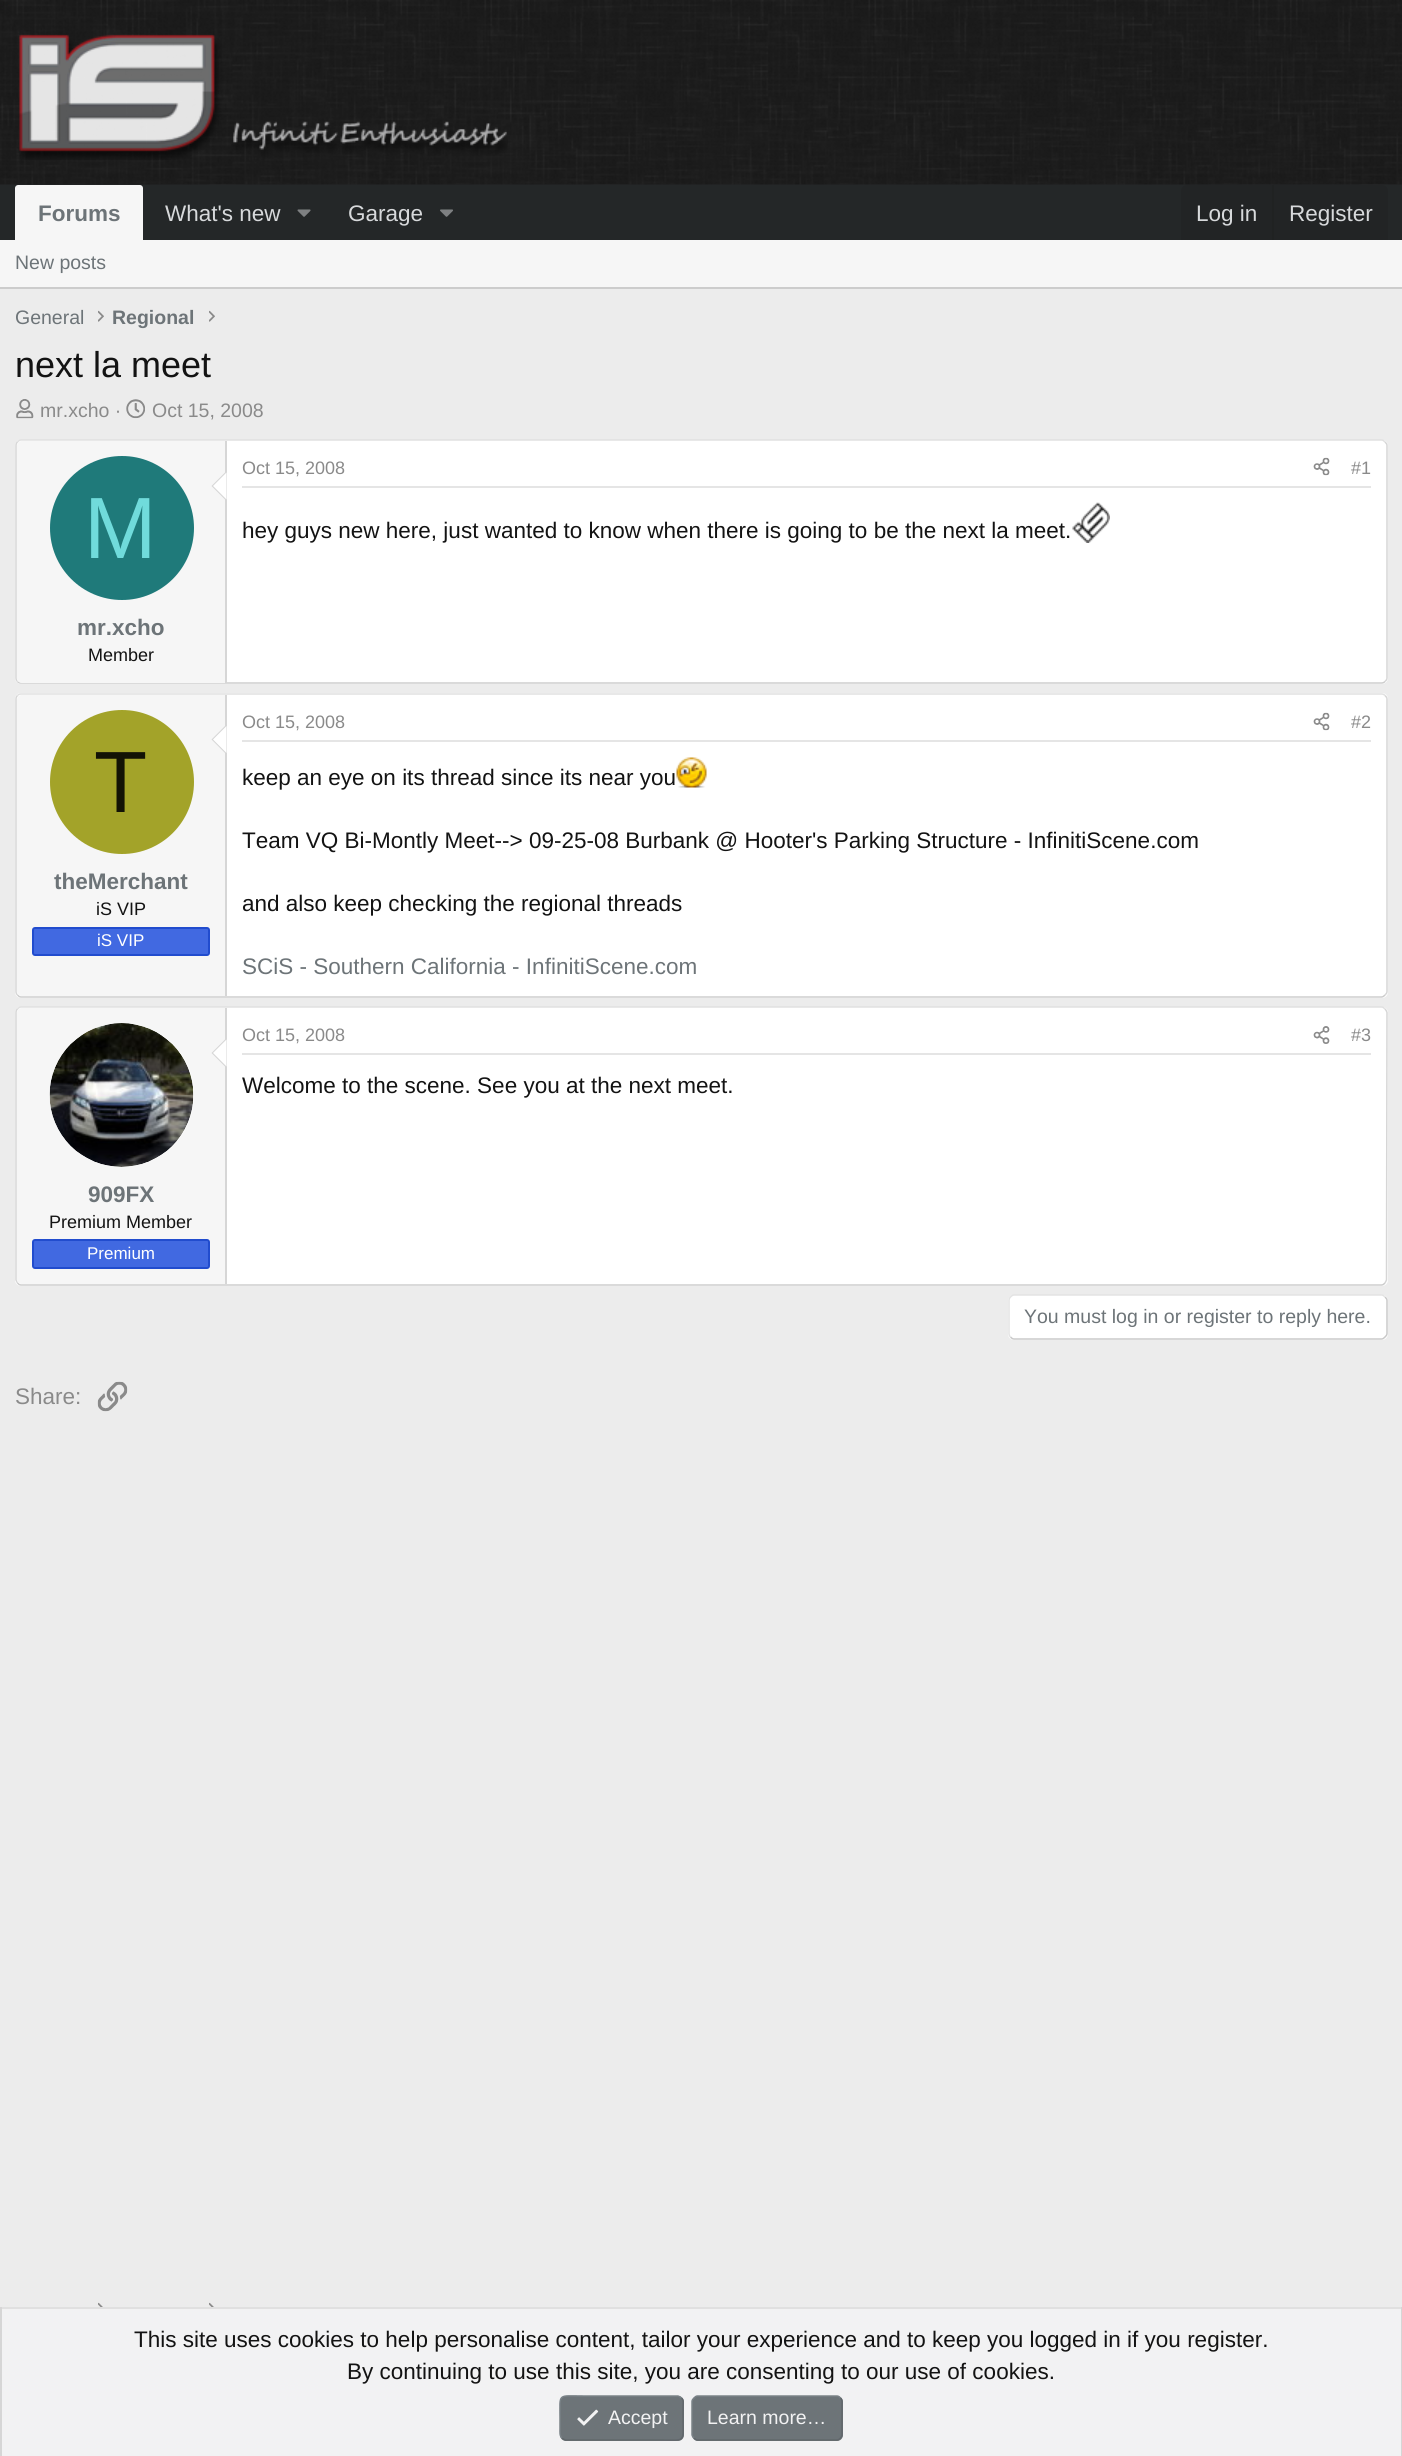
import math
import cairo

surface = cairo.ImageSurface(cairo.FORMAT_RGB24, 1402, 2456)
ctx = cairo.Context(surface)
options = cairo.FontOptions()
options.set_hint_metrics(cairo.HINT_METRICS_OFF)
options.set_hint_style(cairo.HINT_STYLE_NONE)
ctx.set_font_options(options)
ctx.set_miter_limit(4)


def round_rect(x, y, w, h, r):
    ctx.new_sub_path()
    for i, (u, v) in enumerate([(x + w - r, y + h - r), (x + r, y + h - r), (x + r, y + r), (x + w - r, y + r)]):
        ctx.arc(u, v, r, i * math.pi / 2, (i + 1) * math.pi / 2)
    ctx.close_path()


def picture(path, x, y, w, h):
    ctx.save()
    ctx.set_source_surface(cairo.ImageSurface.create_from_png(path), x, y)
    ctx.rectangle(x, y, w, h)
    ctx.fill()
    ctx.restore()


ctx.set_source_rgb(0.922, 0.922, 0.922)
ctx.paint()
ctx.set_source_rgb(0.141, 0.153, 0.157)
ctx.rectangle(0, 184, 1402, 56)
ctx.fill()
picture("img1.png", 0, 0, 1402, 185)
picture("img2.png", 19, 34, 489, 126)
ctx.set_source_rgb(0.961, 0.961, 0.961)
ctx.new_path()
ctx.move_to(18, 185)
ctx.line_to(140, 185)
ctx.curve_to(141.5, 185, 143, 186.5, 143, 188)
ctx.line_to(143, 240)
ctx.line_to(15, 240)
ctx.line_to(15, 188)
ctx.curve_to(15, 186.5, 16.5, 185, 18, 185)
ctx.close_path()
ctx.fill()
ctx.select_font_face("Liberation Sans", cairo.FONT_SLANT_NORMAL, cairo.FONT_WEIGHT_BOLD)
ctx.set_font_size(22.5)
ctx.set_source_rgb(0.427, 0.455, 0.471)
ctx.move_to(38, 221)
ctx.show_text("Forums")
ctx.select_font_face("Liberation Sans")
ctx.set_source_rgb(0.843, 0.851, 0.859)
ctx.move_to(165, 221)
ctx.show_text("What's new")
picture("img3.png", 297, 209, 14, 8)
ctx.move_to(348, 221)
ctx.show_text("Garage")
picture("img4.png", 440, 209, 13, 8)
ctx.set_source_rgb(0.133, 0.141, 0.145)
ctx.new_path()
ctx.move_to(1187, 185)
ctx.line_to(1382, 185)
ctx.curve_to(1385.5, 185, 1388, 187.5, 1388, 191)
ctx.line_to(1388, 240)
ctx.line_to(1181, 240)
ctx.line_to(1181, 191)
ctx.curve_to(1181, 187.5, 1183.5, 185, 1187, 185)
ctx.close_path()
ctx.fill()
ctx.set_source_rgb(0.843, 0.851, 0.859)
ctx.move_to(1196, 221)
ctx.show_text("Log in")
ctx.set_source_rgb(0.125, 0.133, 0.133)
ctx.rectangle(1272, 185, 2, 55)
ctx.fill()
ctx.set_source_rgb(0.843, 0.851, 0.859)
ctx.move_to(1289, 221)
ctx.show_text("Register")
ctx.set_source_rgb(0.961, 0.961, 0.961)
ctx.rectangle(0, 240, 1402, 47)
ctx.fill()
ctx.set_source_rgb(0.8, 0.8, 0.8)
ctx.rectangle(0, 287, 1402, 2)
ctx.fill()
ctx.set_font_size(19.5)
ctx.set_source_rgb(0.427, 0.455, 0.471)
ctx.move_to(15, 269)
ctx.show_text("New posts")
ctx.move_to(15, 324)
ctx.show_text("General")
picture("img5.png", 98, 310, 6, 12)
ctx.select_font_face("Liberation Sans", cairo.FONT_SLANT_NORMAL, cairo.FONT_WEIGHT_BOLD)
ctx.move_to(112, 324)
ctx.show_text("Regional")
picture("img5.png", 209, 310, 6, 12)
ctx.select_font_face("Liberation Sans")
ctx.set_font_size(36)
ctx.set_source_rgb(0.078, 0.078, 0.078)
ctx.move_to(15, 377)
ctx.show_text("next la meet")
picture("img6.png", 16, 399, 18, 20)
ctx.set_font_size(19.5)
ctx.set_source_rgb(0.541, 0.541, 0.541)
ctx.move_to(40, 417)
ctx.show_text("mr.xcho ·")
picture("img7.png", 126, 399, 19, 20)
ctx.move_to(152, 417)
ctx.show_text("Oct 15, 2008")
ctx.set_source_rgb(1, 1, 1)
round_rect(15, 440, 1373, 244, 6)
ctx.fill()
ctx.new_path()
ctx.move_to(17.5, 442)
ctx.curve_to(18.5, 441, 19.5, 440, 21, 440)
ctx.line_to(1381.5, 440)
ctx.curve_to(1383, 440, 1384, 441, 1385, 442)
ctx.set_source_rgb(0.878, 0.878, 0.878)
ctx.set_line_width(1.5)
ctx.stroke()
ctx.new_path()
ctx.move_to(1385, 442)
ctx.curve_to(1386, 443, 1387, 444, 1387, 445.5)
ctx.line_to(1387, 678)
ctx.curve_to(1387, 679.5, 1386, 680.5, 1385, 681.5)
ctx.set_source_rgb(0.839, 0.839, 0.839)
ctx.stroke()
ctx.new_path()
ctx.move_to(1385, 681.5)
ctx.curve_to(1384, 682.5, 1383, 683, 1381.5, 683)
ctx.line_to(21, 683)
ctx.curve_to(19.5, 683, 18.5, 682.5, 17.5, 681.5)
ctx.set_source_rgb(0.8, 0.8, 0.8)
ctx.stroke()
ctx.new_path()
ctx.move_to(17.5, 681.5)
ctx.curve_to(16.5, 680.5, 16, 679.5, 16, 678)
ctx.line_to(16, 445.5)
ctx.curve_to(16, 444, 16.5, 443, 17.5, 442)
ctx.set_source_rgb(0.839, 0.839, 0.839)
ctx.stroke()
ctx.set_source_rgb(0.961, 0.961, 0.961)
ctx.new_path()
ctx.move_to(22, 441)
ctx.line_to(227, 441)
ctx.line_to(227, 683)
ctx.line_to(22, 683)
ctx.curve_to(19, 683, 17, 681, 17, 678)
ctx.line_to(17, 446)
ctx.curve_to(17, 443, 19, 441, 22, 441)
ctx.close_path()
ctx.fill()
ctx.set_source_rgb(0.839, 0.839, 0.839)
ctx.rectangle(225, 441, 2, 242)
ctx.fill()
ctx.new_path()
ctx.move_to(226.5, 471)
ctx.line_to(226.5, 501)
ctx.line_to(211.5, 486)
ctx.close_path()
ctx.fill()
ctx.set_source_rgb(1, 1, 1)
ctx.new_path()
ctx.move_to(226.5, 472.5)
ctx.line_to(226.5, 499.5)
ctx.line_to(213, 486)
ctx.close_path()
ctx.fill()
ctx.set_source_rgb(0.122, 0.478, 0.478)
ctx.arc(122, 528, 72, 0, 2 * math.pi)
ctx.fill()
ctx.set_font_size(87)
ctx.set_source_rgb(0.439, 0.859, 0.859)
ctx.move_to(84, 558)
ctx.show_text("M")
ctx.select_font_face("Liberation Sans", cairo.FONT_SLANT_NORMAL, cairo.FONT_WEIGHT_BOLD)
ctx.set_font_size(22.5)
ctx.set_source_rgb(0.427, 0.455, 0.471)
ctx.move_to(77, 635)
ctx.show_text("mr.xcho")
ctx.select_font_face("Liberation Sans")
ctx.set_font_size(18)
ctx.set_source_rgb(0.078, 0.078, 0.078)
ctx.move_to(88, 661)
ctx.show_text("Member")
ctx.set_source_rgb(0.898, 0.898, 0.898)
ctx.rectangle(242, 486, 1129, 2)
ctx.fill()
ctx.set_source_rgb(0.541, 0.541, 0.541)
ctx.move_to(242, 474)
ctx.show_text("Oct 15, 2008")
picture("img8.png", 1313, 457, 17, 19)
ctx.move_to(1351, 474)
ctx.show_text("#1")
ctx.set_font_size(22.5)
ctx.set_source_rgb(0.078, 0.078, 0.078)
ctx.move_to(242, 538)
ctx.show_text("hey guys new here, just wanted to know when there is going to be the next la meet.")
picture("img9.png", 1072, 502, 38, 41)
ctx.set_source_rgb(1, 1, 1)
round_rect(15, 693, 1373, 305, 6)
ctx.fill()
ctx.new_path()
ctx.move_to(17.5, 695.5)
ctx.curve_to(18.5, 694.5, 19.5, 694, 21, 694)
ctx.line_to(1381.5, 694)
ctx.curve_to(1383, 694, 1384, 694.5, 1385, 695.5)
ctx.set_source_rgb(0.878, 0.878, 0.878)
ctx.stroke()
ctx.new_path()
ctx.move_to(1385, 695.5)
ctx.curve_to(1386, 696.5, 1387, 697.5, 1387, 699)
ctx.line_to(1387, 991.5)
ctx.curve_to(1387, 993, 1386, 994, 1385, 995)
ctx.set_source_rgb(0.839, 0.839, 0.839)
ctx.stroke()
ctx.new_path()
ctx.move_to(1385, 995)
ctx.curve_to(1384, 996, 1383, 997, 1381.5, 997)
ctx.line_to(21, 997)
ctx.curve_to(19.5, 997, 18.5, 996, 17.5, 995)
ctx.set_source_rgb(0.8, 0.8, 0.8)
ctx.stroke()
ctx.new_path()
ctx.move_to(17.5, 995)
ctx.curve_to(16.5, 994, 16, 993, 16, 991.5)
ctx.line_to(16, 699)
ctx.curve_to(16, 697.5, 16.5, 696.5, 17.5, 695.5)
ctx.set_source_rgb(0.839, 0.839, 0.839)
ctx.stroke()
ctx.set_source_rgb(0.961, 0.961, 0.961)
ctx.new_path()
ctx.move_to(22, 695)
ctx.line_to(227, 695)
ctx.line_to(227, 996)
ctx.line_to(22, 996)
ctx.curve_to(19, 996, 17, 994, 17, 991)
ctx.line_to(17, 700)
ctx.curve_to(17, 697, 19, 695, 22, 695)
ctx.close_path()
ctx.fill()
ctx.set_source_rgb(0.839, 0.839, 0.839)
ctx.rectangle(225, 695, 2, 301)
ctx.fill()
ctx.new_path()
ctx.move_to(226.5, 724.5)
ctx.line_to(226.5, 754.5)
ctx.line_to(211.5, 739.5)
ctx.close_path()
ctx.fill()
ctx.set_source_rgb(1, 1, 1)
ctx.new_path()
ctx.move_to(226.5, 726)
ctx.line_to(226.5, 753)
ctx.line_to(213, 739.5)
ctx.close_path()
ctx.fill()
ctx.set_source_rgb(0.639, 0.639, 0.161)
ctx.arc(122, 782, 72, 0, 2 * math.pi)
ctx.fill()
ctx.set_font_size(87)
ctx.set_source_rgb(0.078, 0.078, 0.02)
ctx.move_to(94, 812)
ctx.show_text("T")
ctx.select_font_face("Liberation Sans", cairo.FONT_SLANT_NORMAL, cairo.FONT_WEIGHT_BOLD)
ctx.set_font_size(22.5)
ctx.set_source_rgb(0.427, 0.455, 0.471)
ctx.move_to(54, 889)
ctx.show_text("theMerchant")
ctx.select_font_face("Liberation Sans")
ctx.set_font_size(18)
ctx.set_source_rgb(0.078, 0.078, 0.078)
ctx.move_to(96, 915)
ctx.show_text("iS VIP")
ctx.set_source_rgb(0.255, 0.412, 0.882)
round_rect(33, 928, 176, 27, 2)
ctx.fill_preserve()
ctx.set_source_rgb(0.129, 0.298, 0.808)
ctx.set_line_width(2)
ctx.stroke()
ctx.set_font_size(17)
ctx.set_source_rgb(1, 1, 1)
ctx.move_to(97, 946)
ctx.show_text("iS VIP")
ctx.set_source_rgb(0.898, 0.898, 0.898)
ctx.rectangle(242, 740, 1129, 2)
ctx.fill()
ctx.set_font_size(18)
ctx.set_source_rgb(0.541, 0.541, 0.541)
ctx.move_to(242, 728)
ctx.show_text("Oct 15, 2008")
picture("img8.png", 1313, 712, 17, 19)
ctx.move_to(1351, 728)
ctx.show_text("#2")
ctx.set_font_size(22.5)
ctx.set_source_rgb(0.078, 0.078, 0.078)
ctx.move_to(242, 785)
ctx.show_text("keep an eye on its thread since its near you")
picture("img10.png", 676, 757, 31, 31)
ctx.move_to(242, 848)
ctx.show_text("Team VQ Bi-Montly Meet--> 09-25-08 Burbank @ Hooter's Parking Structure - InfinitiScene.com")
ctx.move_to(242, 911)
ctx.show_text("and also keep checking the regional threads")
ctx.set_source_rgb(0.427, 0.455, 0.471)
ctx.move_to(242, 974)
ctx.show_text("SCiS - Southern California - InfinitiScene.com")
ctx.set_source_rgb(1, 1, 1)
round_rect(15, 1007, 1373, 279, 6)
ctx.fill()
ctx.new_path()
ctx.move_to(17.5, 1009)
ctx.curve_to(18.5, 1008, 19.5, 1007, 21, 1007)
ctx.line_to(1381.5, 1007)
ctx.curve_to(1383, 1007, 1384, 1008, 1385, 1009)
ctx.set_source_rgb(0.878, 0.878, 0.878)
ctx.set_line_width(1.5)
ctx.stroke()
ctx.new_path()
ctx.move_to(1385, 1009)
ctx.curve_to(1386, 1010, 1386.5, 1011, 1387, 1012.5)
ctx.line_to(1386.5, 1280)
ctx.line_to(1385, 1283)
ctx.set_source_rgb(0.839, 0.839, 0.839)
ctx.stroke()
ctx.new_path()
ctx.move_to(1385, 1283)
ctx.curve_to(1384, 1284, 1383, 1285, 1381.5, 1285)
ctx.line_to(21, 1285)
ctx.curve_to(19.5, 1285, 18.5, 1284, 17.5, 1283)
ctx.set_source_rgb(0.8, 0.8, 0.8)
ctx.stroke()
ctx.new_path()
ctx.move_to(17.5, 1283)
ctx.line_to(16, 1280)
ctx.line_to(16, 1012.5)
ctx.curve_to(16, 1011, 16.5, 1010, 17.5, 1009)
ctx.set_source_rgb(0.839, 0.839, 0.839)
ctx.stroke()
ctx.set_source_rgb(0.898, 0.898, 0.898)
ctx.rectangle(242, 1053, 1129, 2)
ctx.fill()
ctx.set_font_size(18)
ctx.set_source_rgb(0.541, 0.541, 0.541)
ctx.move_to(242, 1041)
ctx.show_text("Oct 15, 2008")
picture("img11.png", 1313, 1026, 17, 18)
ctx.move_to(1351, 1041)
ctx.show_text("#3")
ctx.set_font_size(22.5)
ctx.set_source_rgb(0.078, 0.078, 0.078)
ctx.move_to(242, 1093)
ctx.show_text("Welcome to the scene. See you at the next meet.")
ctx.set_source_rgb(0.961, 0.961, 0.961)
ctx.new_path()
ctx.move_to(22, 1008)
ctx.line_to(227, 1008)
ctx.line_to(227, 1284)
ctx.line_to(22, 1284)
ctx.curve_to(19, 1284, 17, 1282, 17, 1279)
ctx.line_to(17, 1013)
ctx.curve_to(17, 1010, 19, 1008, 22, 1008)
ctx.close_path()
ctx.fill()
ctx.set_source_rgb(0.839, 0.839, 0.839)
ctx.rectangle(225, 1008, 2, 276)
ctx.fill()
ctx.set_source_rgb(1, 1, 1)
ctx.arc(122, 1095, 72, 0, 2 * math.pi)
ctx.fill()
picture("img12.png", 49, 1023, 145, 144)
ctx.set_source_rgb(0.839, 0.839, 0.839)
ctx.new_path()
ctx.move_to(226.5, 1038)
ctx.line_to(226.5, 1068)
ctx.line_to(211.5, 1053)
ctx.close_path()
ctx.fill()
ctx.set_source_rgb(1, 1, 1)
ctx.new_path()
ctx.move_to(226.5, 1039.5)
ctx.line_to(226.5, 1066.5)
ctx.line_to(213, 1053)
ctx.close_path()
ctx.fill()
ctx.select_font_face("Liberation Sans", cairo.FONT_SLANT_NORMAL, cairo.FONT_WEIGHT_BOLD)
ctx.set_source_rgb(0.427, 0.455, 0.471)
ctx.move_to(88, 1202)
ctx.show_text("909FX")
ctx.select_font_face("Liberation Sans")
ctx.set_font_size(18)
ctx.set_source_rgb(0.078, 0.078, 0.078)
ctx.move_to(49, 1228)
ctx.show_text("Premium Member")
ctx.set_source_rgb(0.255, 0.412, 0.882)
round_rect(33, 1240, 176, 28, 2)
ctx.fill_preserve()
ctx.set_source_rgb(0.129, 0.298, 0.808)
ctx.set_line_width(2)
ctx.stroke()
ctx.set_font_size(17)
ctx.set_source_rgb(1, 1, 1)
ctx.move_to(87, 1259)
ctx.show_text("Premium")
round_rect(1008, 1295, 380, 45, 6)
ctx.fill()
ctx.new_path()
ctx.move_to(1385, 1297)
ctx.curve_to(1386, 1298, 1387, 1299, 1387, 1300.5)
ctx.line_to(1387, 1333.5)
ctx.curve_to(1387, 1335, 1386, 1336, 1385, 1337)
ctx.curve_to(1384, 1338, 1383, 1339, 1381.5, 1339)
ctx.line_to(1014, 1339)
ctx.curve_to(1012.5, 1339, 1011.5, 1338, 1010.5, 1337)
ctx.set_source_rgb(0.788, 0.788, 0.788)
ctx.set_line_width(1.5)
ctx.stroke()
ctx.new_path()
ctx.move_to(1010.5, 1337)
ctx.curve_to(1009.5, 1336, 1009, 1335, 1009, 1333.5)
ctx.line_to(1009, 1300.5)
ctx.curve_to(1009, 1299, 1009.5, 1298, 1010.5, 1297)
ctx.curve_to(1011.5, 1296, 1012.5, 1295, 1014, 1295)
ctx.line_to(1381.5, 1295)
ctx.curve_to(1383, 1295, 1384, 1296, 1385, 1297)
ctx.set_source_rgb(0.89, 0.89, 0.89)
ctx.stroke()
ctx.set_font_size(19.5)
ctx.set_source_rgb(0.427, 0.455, 0.471)
ctx.move_to(1024, 1323)
ctx.show_text("You must log in or register to reply here.")
ctx.set_font_size(22.5)
ctx.set_source_rgb(0.541, 0.541, 0.541)
ctx.move_to(15, 1404)
ctx.show_text("Share:")
picture("img13.png", 97, 1381, 31, 31)
picture("img14.png", 98, 2302, 5, 5)
picture("img14.png", 209, 2302, 5, 5)
ctx.set_source_rgb(0.949, 0.949, 0.953)
ctx.rectangle(2, 2309, 1399, 147)
ctx.fill()
ctx.set_source_rgb(0.878, 0.878, 0.878)
ctx.rectangle(0, 2307, 1402, 2)
ctx.fill()
ctx.set_source_rgb(0.839, 0.839, 0.839)
ctx.rectangle(1401, 2307, 1, 149)
ctx.fill()
ctx.rectangle(0, 2307, 2, 149)
ctx.fill()
ctx.set_source_rgb(0.078, 0.078, 0.078)
ctx.move_to(134, 2347)
ctx.show_text("This site uses cookies to help personalise content, tailor your experience and to keep you logged in if you register.")
ctx.move_to(347, 2379)
ctx.show_text("By continuing to use this site, you are consenting to our use of cookies.")
ctx.set_source_rgb(0.427, 0.455, 0.471)
round_rect(560, 2396, 124, 45, 6)
ctx.fill()
ctx.new_path()
ctx.move_to(681.5, 2398)
ctx.curve_to(684, 2400, 683, 2404, 683, 2407)
ctx.line_to(683, 2418)
ctx.curve_to(683, 2443.5, 686.5, 2440, 659, 2440)
ctx.line_to(565.5, 2440)
ctx.curve_to(564, 2439.5, 563, 2439, 562, 2438)
ctx.set_source_rgb(0.38, 0.404, 0.42)
ctx.stroke()
ctx.new_path()
ctx.move_to(562, 2438)
ctx.curve_to(559.5, 2436, 560, 2432, 560, 2429)
ctx.line_to(560, 2418)
ctx.curve_to(560, 2392.5, 557, 2396, 584, 2396)
ctx.line_to(678, 2396)
ctx.curve_to(679.5, 2396.5, 680.5, 2397, 681.5, 2398)
ctx.set_source_rgb(0.475, 0.506, 0.525)
ctx.stroke()
picture("img15.png", 577, 2409, 22, 17)
ctx.set_font_size(19.5)
ctx.set_source_rgb(0.949, 0.949, 0.953)
ctx.move_to(608, 2424)
ctx.show_text("Accept")
ctx.set_source_rgb(0.427, 0.455, 0.471)
round_rect(692, 2396, 151, 45, 6)
ctx.fill()
ctx.new_path()
ctx.move_to(840.5, 2398)
ctx.curve_to(841.5, 2399, 842, 2400, 842, 2401.5)
ctx.line_to(842, 2434.5)
ctx.curve_to(842, 2436, 841.5, 2437, 840.5, 2438)
ctx.curve_to(839.5, 2439, 838.5, 2440, 837, 2440)
ctx.line_to(697.5, 2440)
ctx.curve_to(696, 2440, 695, 2439, 694, 2438)
ctx.set_source_rgb(0.38, 0.404, 0.42)
ctx.stroke()
ctx.new_path()
ctx.move_to(694, 2438)
ctx.curve_to(693, 2437, 692, 2436, 692, 2434.5)
ctx.line_to(692, 2401.5)
ctx.curve_to(692, 2400, 693, 2399, 694, 2398)
ctx.curve_to(695, 2397, 696, 2396, 697.5, 2396)
ctx.line_to(837, 2396)
ctx.curve_to(838.5, 2396, 839.5, 2397, 840.5, 2398)
ctx.set_source_rgb(0.475, 0.506, 0.525)
ctx.stroke()
ctx.set_source_rgb(0.949, 0.949, 0.953)
ctx.move_to(707, 2424)
ctx.show_text("Learn more…")
surface.write_to_png("page.png")
